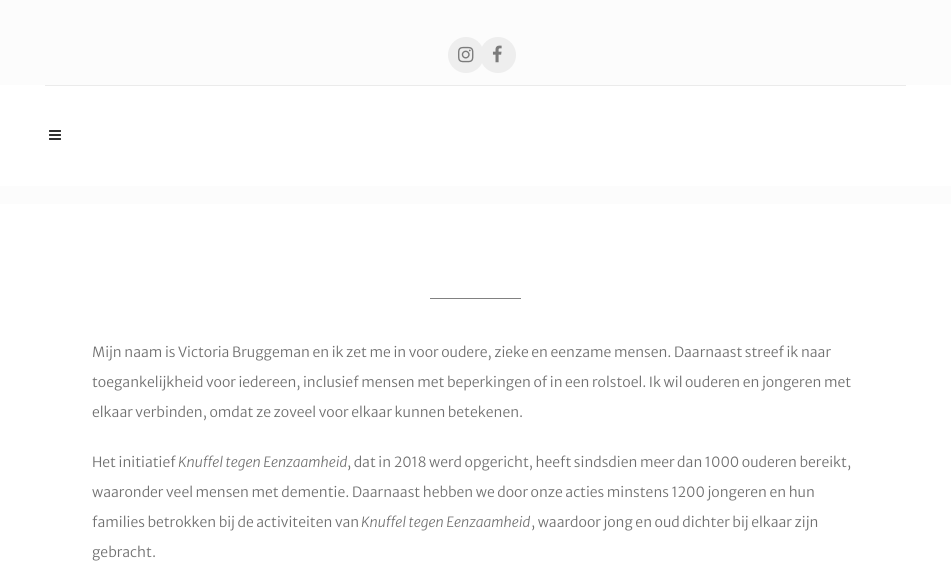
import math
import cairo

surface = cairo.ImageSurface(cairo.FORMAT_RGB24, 951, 581)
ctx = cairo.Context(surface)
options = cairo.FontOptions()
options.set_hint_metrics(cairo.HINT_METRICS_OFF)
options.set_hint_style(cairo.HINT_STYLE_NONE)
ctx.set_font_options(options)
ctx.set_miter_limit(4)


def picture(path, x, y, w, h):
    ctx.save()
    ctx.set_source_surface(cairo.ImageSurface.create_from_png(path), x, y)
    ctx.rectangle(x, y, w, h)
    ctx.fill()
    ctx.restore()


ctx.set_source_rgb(0.988, 0.988, 0.988)
ctx.paint()
ctx.set_source_rgb(0.933, 0.933, 0.933)
ctx.arc(466, 55, 18, 0, 2 * math.pi)
ctx.fill()
picture("img1.png", 458, 46, 16, 17)
ctx.arc(498, 55, 18, 0, 2 * math.pi)
ctx.fill()
picture("img2.png", 492, 45, 10, 18)
ctx.set_source_rgb(1, 1, 1)
ctx.rectangle(0, 85, 951, 101)
ctx.fill()
ctx.set_source_rgb(0.918, 0.918, 0.918)
ctx.rectangle(45, 85, 861, 1)
ctx.fill()
picture("img3.png", 49, 130, 12, 10)
ctx.set_source_rgb(1, 1, 1)
ctx.rectangle(0, 204, 951, 377)
ctx.fill()
ctx.set_source_rgb(0.506, 0.506, 0.506)
ctx.rectangle(430, 298, 91, 1)
ctx.fill()
ctx.select_font_face("Merriweather Sans Light")
ctx.set_font_size(14)
ctx.set_source_rgb(0.439, 0.439, 0.439)
ctx.move_to(92, 357)
ctx.show_text("Mijn naam is Victoria Bruggeman en ik zet me in voor oudere, zieke en eenzame mensen. Daarnaast streef ik naar")
ctx.move_to(92, 387)
ctx.show_text("toegankelijkheid voor iedereen, inclusief mensen met beperkingen of in een rolstoel. Ik wil ouderen en jongeren met")
ctx.move_to(92, 417)
ctx.show_text("elkaar verbinden, omdat ze zoveel voor elkaar kunnen betekenen.")
ctx.move_to(92, 467)
ctx.show_text("Het initiatief")
ctx.select_font_face("Merriweather Sans Light", cairo.FONT_SLANT_ITALIC)
ctx.move_to(178, 467)
ctx.show_text("Knuffel tegen Eenzaamheid")
ctx.select_font_face("Merriweather Sans Light")
ctx.move_to(347, 467)
ctx.show_text(", dat in 2018 werd opgericht, heeft sindsdien meer dan 1000 ouderen bereikt,")
ctx.move_to(92, 497)
ctx.show_text("waaronder veel mensen met dementie. Daarnaast hebben we door onze acties minstens 1200 jongeren en hun")
ctx.move_to(92, 527)
ctx.show_text("families betrokken bij de activiteiten van")
ctx.select_font_face("Merriweather Sans Light", cairo.FONT_SLANT_ITALIC)
ctx.move_to(361, 527)
ctx.show_text("Knuffel tegen Eenzaamheid")
ctx.select_font_face("Merriweather Sans Light")
ctx.move_to(531, 527)
ctx.show_text(", waardoor jong en oud dichter bij elkaar zijn")
ctx.move_to(92, 557)
ctx.show_text("gebracht.")
surface.write_to_png("page.png")
